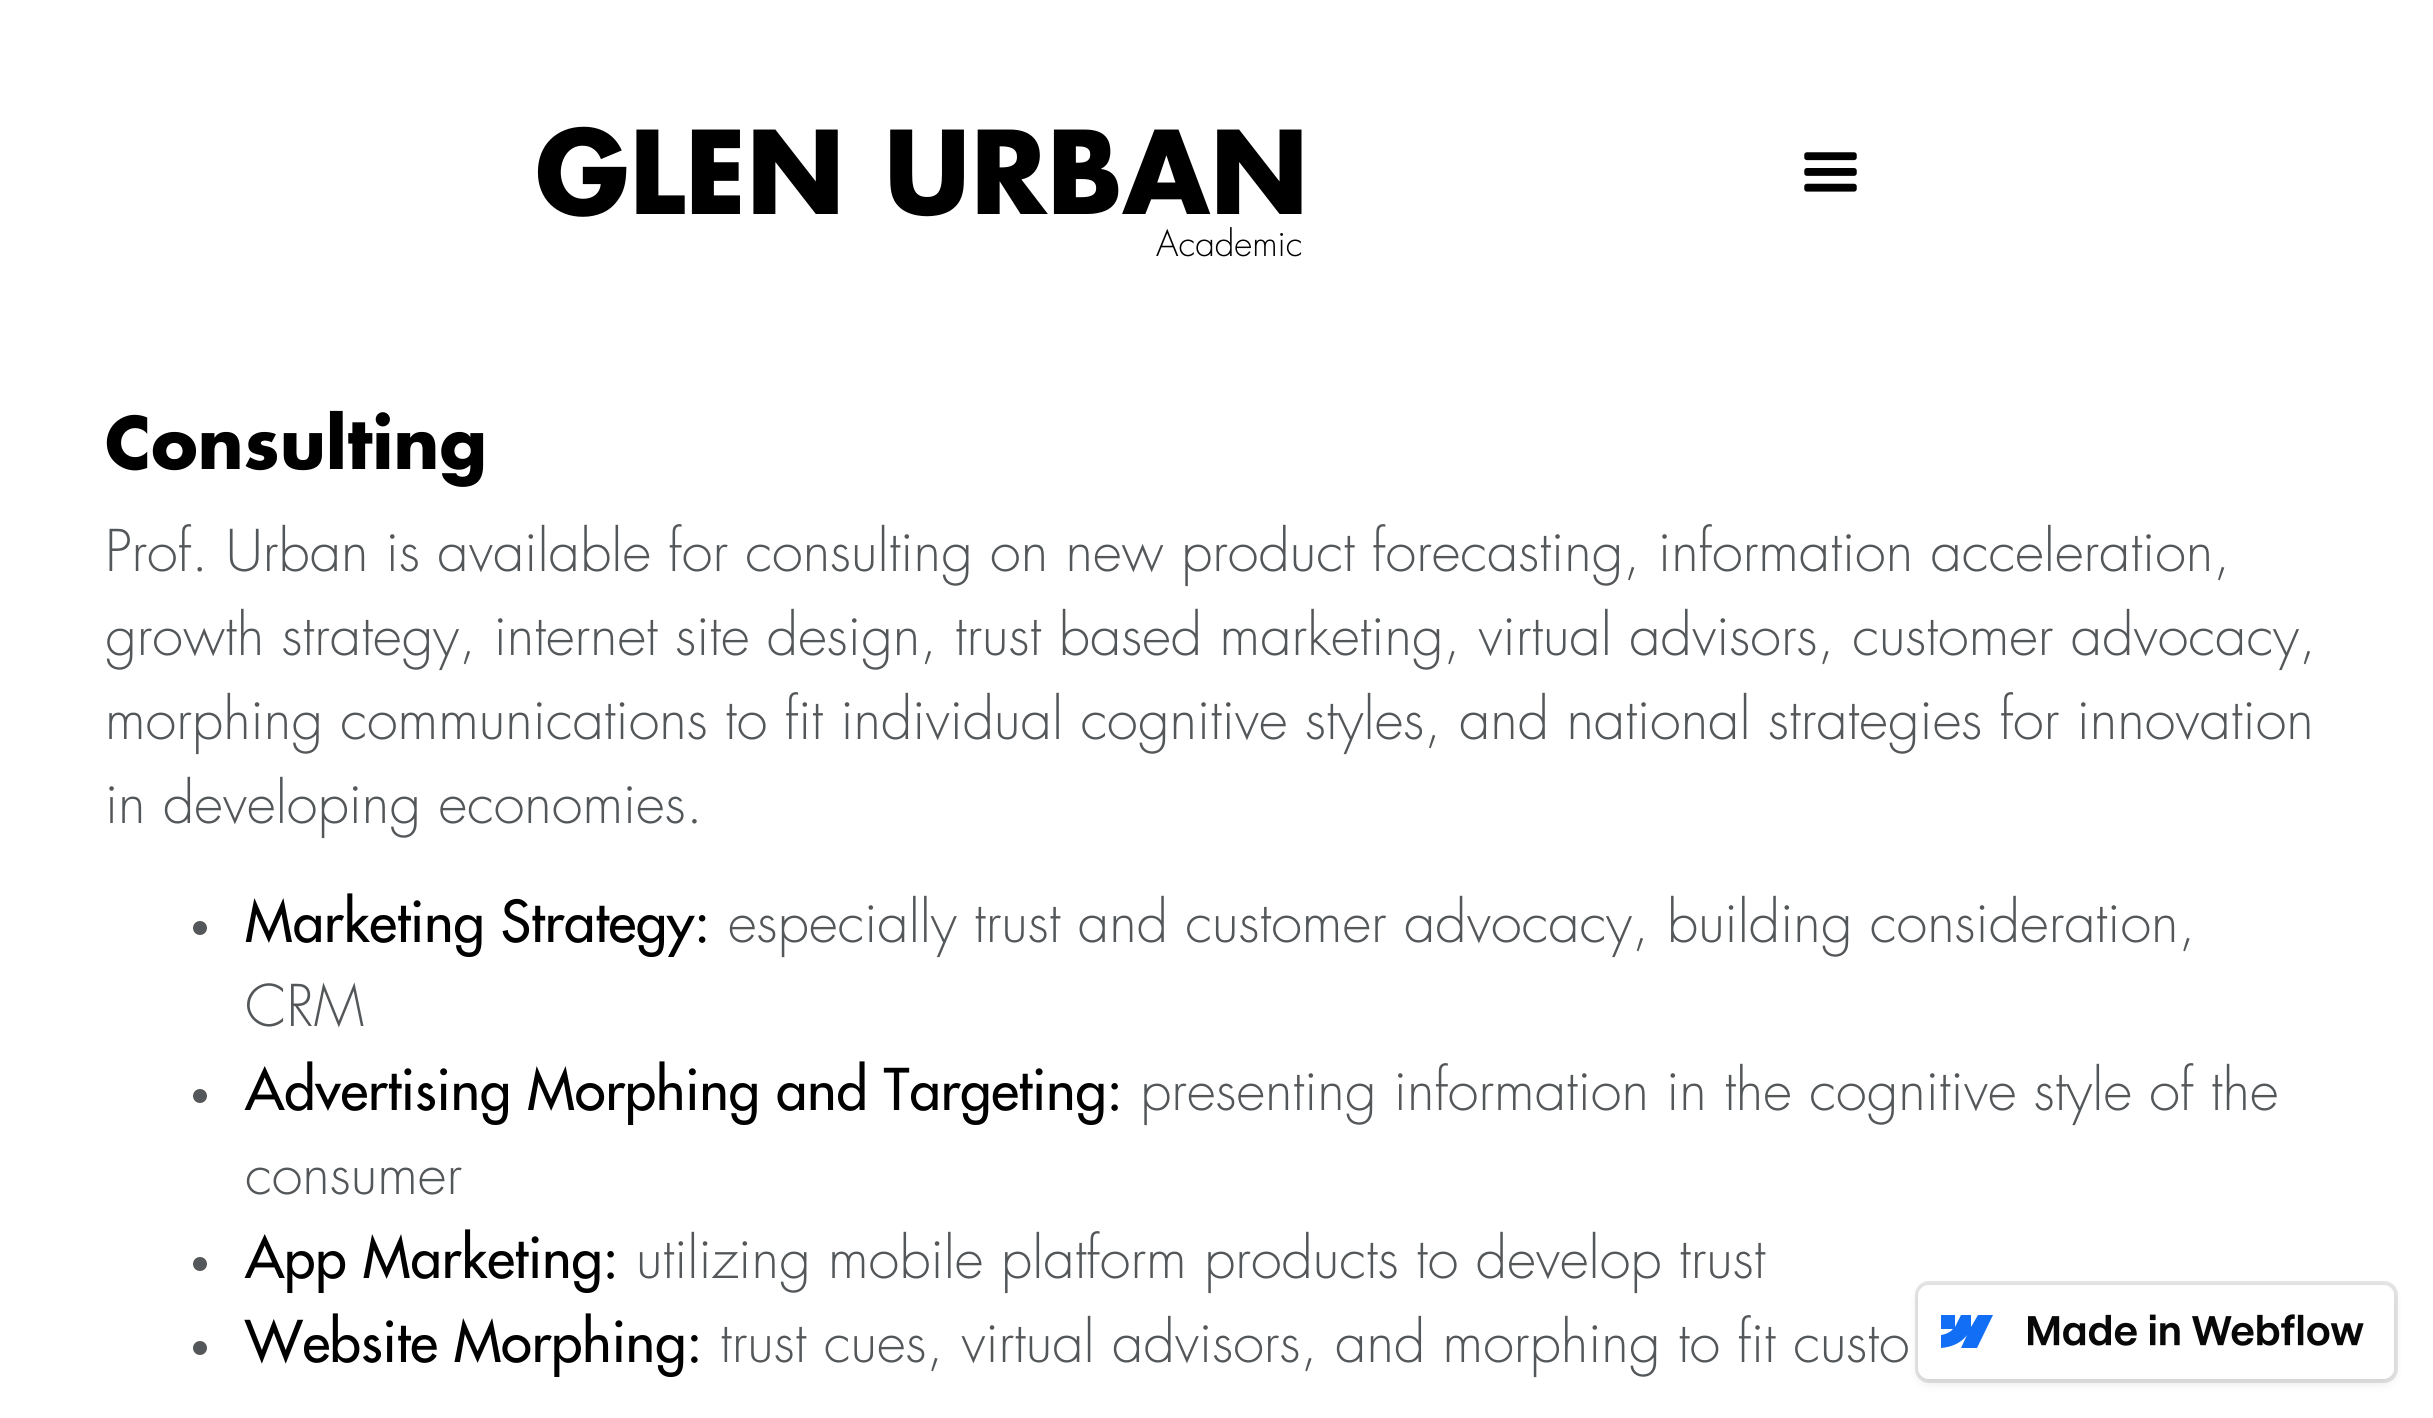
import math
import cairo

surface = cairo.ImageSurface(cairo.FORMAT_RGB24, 2433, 1418)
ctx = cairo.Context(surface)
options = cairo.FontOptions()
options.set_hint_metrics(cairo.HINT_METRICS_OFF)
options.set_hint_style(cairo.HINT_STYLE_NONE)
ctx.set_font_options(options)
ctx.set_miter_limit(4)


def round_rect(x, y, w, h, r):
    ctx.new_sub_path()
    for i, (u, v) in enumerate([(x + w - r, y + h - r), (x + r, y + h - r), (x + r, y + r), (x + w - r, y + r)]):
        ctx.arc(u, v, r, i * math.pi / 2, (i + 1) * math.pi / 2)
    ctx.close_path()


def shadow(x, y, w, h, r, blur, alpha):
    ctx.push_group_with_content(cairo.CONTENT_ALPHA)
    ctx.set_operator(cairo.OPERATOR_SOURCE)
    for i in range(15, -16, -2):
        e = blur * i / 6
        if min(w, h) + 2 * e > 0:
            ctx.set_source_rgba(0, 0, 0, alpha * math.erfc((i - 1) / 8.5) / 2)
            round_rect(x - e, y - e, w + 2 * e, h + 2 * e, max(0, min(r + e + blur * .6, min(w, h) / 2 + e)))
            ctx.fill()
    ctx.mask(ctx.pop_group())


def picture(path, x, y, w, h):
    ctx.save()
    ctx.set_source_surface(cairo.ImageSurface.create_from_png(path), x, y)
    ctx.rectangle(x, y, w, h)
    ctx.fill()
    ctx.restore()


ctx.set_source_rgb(1, 1, 1)
ctx.paint()
ctx.select_font_face("Futura", cairo.FONT_SLANT_NORMAL, cairo.FONT_WEIGHT_BOLD)
ctx.set_font_size(112)
ctx.set_source_rgb(0, 0, 0)
ctx.move_to(535, 214)
ctx.show_text("GLEN URBAN")
ctx.select_font_face("Futura Light")
ctx.set_font_size(35)
ctx.move_to(1156, 256)
ctx.show_text("Academic")
picture("img1.png", 1804, 152, 53, 40)
ctx.select_font_face("Futura", cairo.FONT_SLANT_NORMAL, cairo.FONT_WEIGHT_BOLD)
ctx.set_font_size(70)
ctx.move_to(105, 469)
ctx.show_text("Consulting")
ctx.select_font_face("Futura Light")
ctx.set_font_size(56)
ctx.set_source_rgb(0.329, 0.341, 0.349)
ctx.move_to(105, 571)
ctx.show_text("Prof. Urban is available for consulting on new product forecasting, information acceleration,")
ctx.move_to(105, 655)
ctx.show_text("growth strategy, internet site design, trust based marketing, virtual advisors, customer advocacy,")
ctx.move_to(105, 739)
ctx.show_text("morphing communications to fit individual cognitive styles, and national strategies for innovation")
ctx.move_to(105, 823)
ctx.show_text("in developing economies.")
ctx.new_path()
ctx.arc(200, 928, 7, 0, 2 * math.pi)
ctx.fill()
ctx.select_font_face("Futura Medium")
ctx.set_source_rgb(0, 0, 0)
ctx.move_to(245, 942)
ctx.show_text("Marketing Strategy:")
ctx.select_font_face("Futura Light")
ctx.set_source_rgb(0.329, 0.341, 0.349)
ctx.move_to(728, 942)
ctx.show_text("especially trust and customer advocacy, building consideration,")
ctx.move_to(245, 1026)
ctx.show_text("CRM")
ctx.new_path()
ctx.arc(200, 1096, 7, 0, 2 * math.pi)
ctx.fill()
ctx.select_font_face("Futura Medium")
ctx.set_source_rgb(0, 0, 0)
ctx.move_to(245, 1110)
ctx.show_text("Advertising Morphing and Targeting:")
ctx.select_font_face("Futura Light")
ctx.set_source_rgb(0.329, 0.341, 0.349)
ctx.move_to(1140, 1110)
ctx.show_text("presenting information in the cognitive style of the")
ctx.move_to(245, 1194)
ctx.show_text("consumer")
ctx.new_path()
ctx.arc(200, 1264, 7, 0, 2 * math.pi)
ctx.fill()
ctx.select_font_face("Futura Medium")
ctx.set_source_rgb(0, 0, 0)
ctx.move_to(245, 1278)
ctx.show_text("App Marketing:")
ctx.select_font_face("Futura Light")
ctx.set_source_rgb(0.329, 0.341, 0.349)
ctx.move_to(636, 1278)
ctx.show_text("utilizing mobile platform products to develop trust")
ctx.new_path()
ctx.arc(200, 1348, 7, 0, 2 * math.pi)
ctx.fill()
ctx.select_font_face("Futura Medium")
ctx.set_source_rgb(0, 0, 0)
ctx.move_to(245, 1362)
ctx.show_text("Website Morphing:")
ctx.select_font_face("Futura Light")
ctx.set_source_rgb(0.329, 0.341, 0.349)
ctx.move_to(720, 1362)
ctx.show_text("trust cues, virtual advisors, and morphing to fit custo")
ctx.set_source_rgb(0, 0, 0)
shadow(1918, 1288, 476, 95, 11, 5, 0.1)
round_rect(1917, 1283, 479, 98, 12)
ctx.set_source_rgba(0, 0, 0, 0.1)
ctx.set_line_width(4)
ctx.stroke()
ctx.set_source_rgb(1, 1, 1)
round_rect(1918, 1285, 476, 94, 11)
ctx.fill()
ctx.set_source_rgb(0.078, 0.431, 0.961)
ctx.set_fill_rule(cairo.FILL_RULE_EVEN_ODD)
ctx.new_path()
ctx.move_to(1993, 1315)
ctx.line_to(1977, 1348)
ctx.line_to(1961, 1348)
ctx.line_to(1967, 1335)
ctx.curve_to(1962, 1342, 1953, 1347, 1941, 1348)
ctx.line_to(1941, 1335)
ctx.curve_to(1941, 1335, 1949, 1334, 1953, 1329)
ctx.line_to(1941, 1329)
ctx.line_to(1941, 1315)
ctx.line_to(1955, 1315)
ctx.line_to(1955, 1327)
ctx.line_to(1961, 1315)
ctx.line_to(1971, 1315)
ctx.line_to(1971, 1327)
ctx.line_to(1978, 1315)
ctx.close_path()
ctx.fill()
picture("img2.png", 2028, 1314, 336, 32)
surface.write_to_png("page.png")
